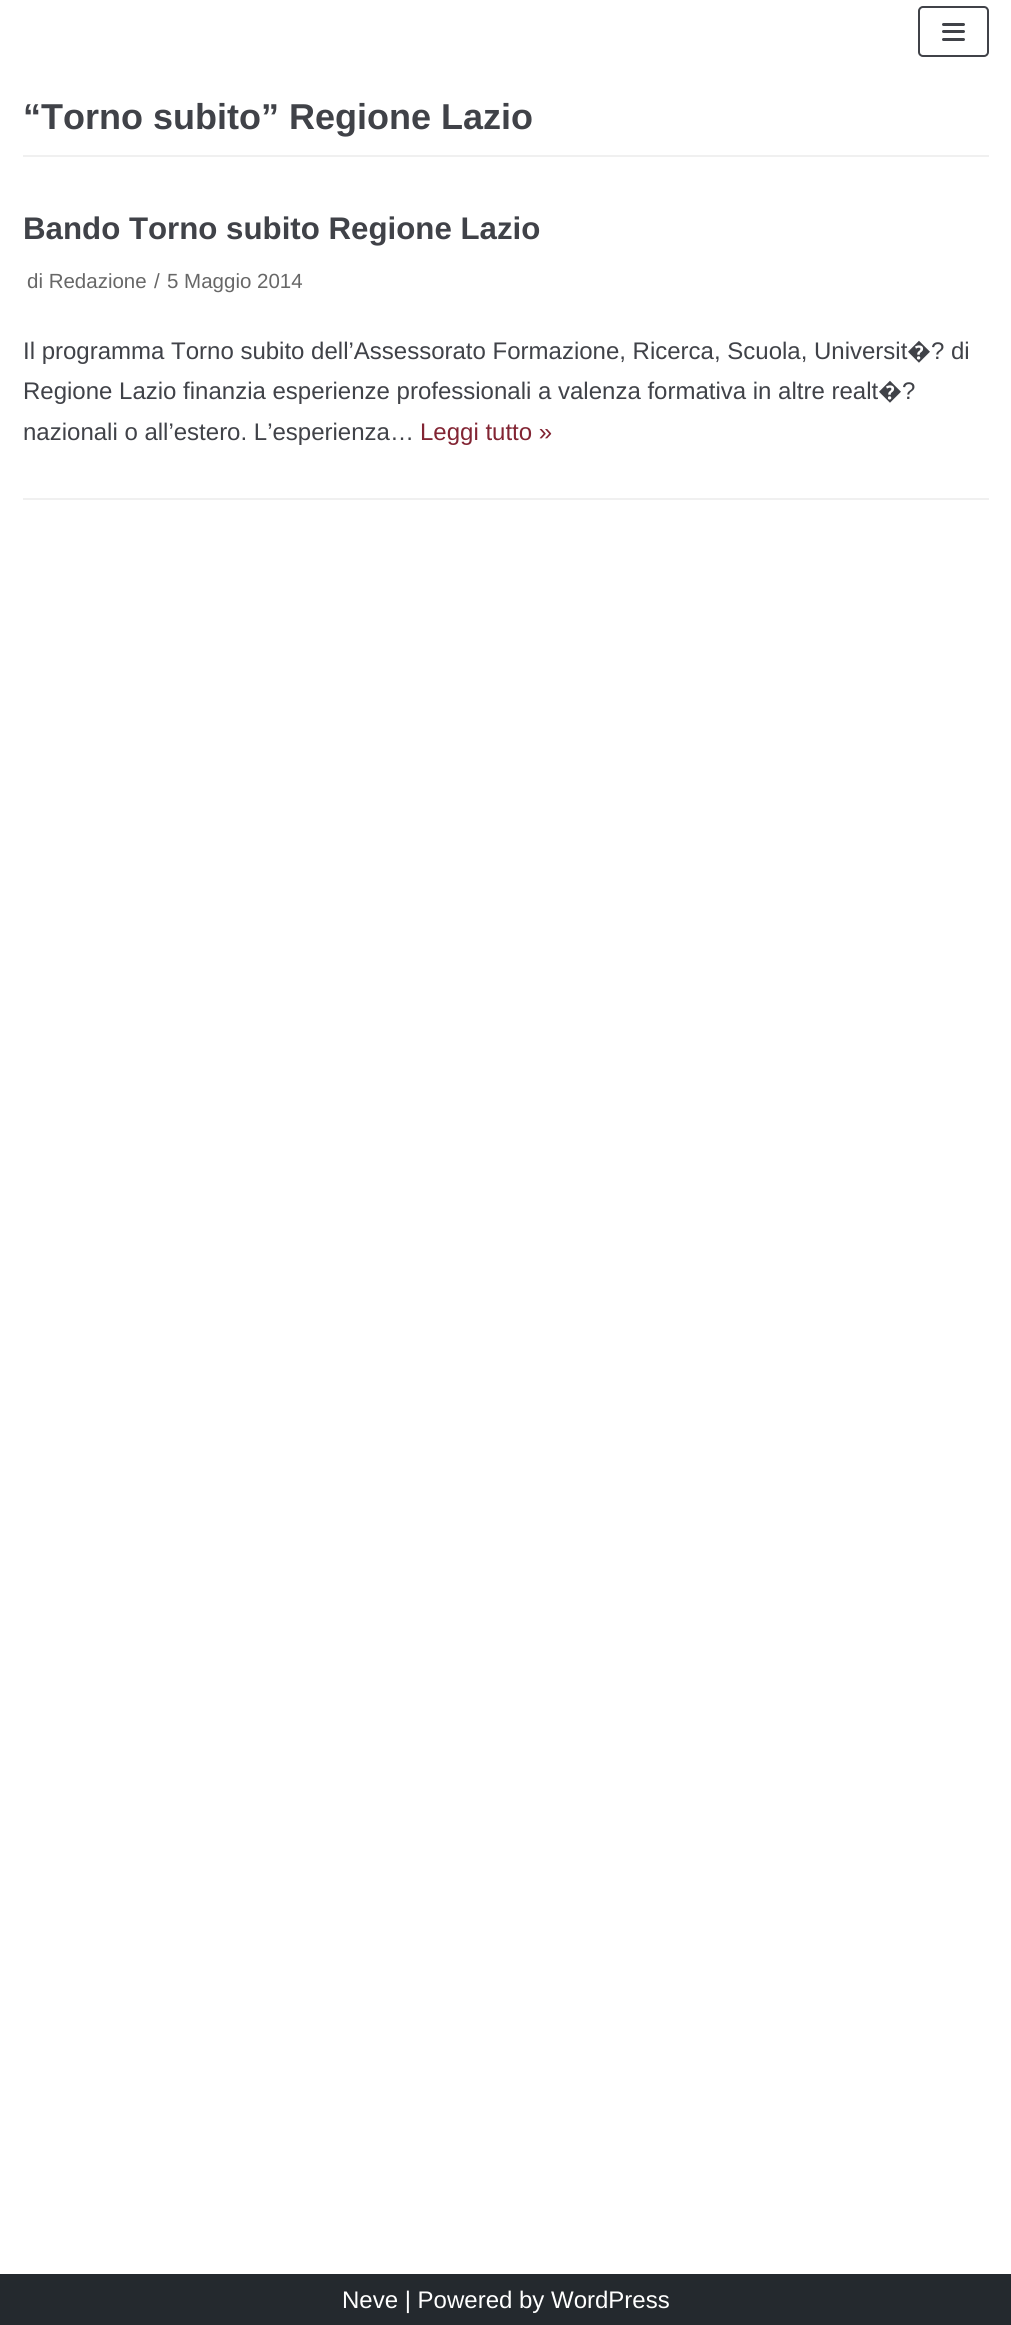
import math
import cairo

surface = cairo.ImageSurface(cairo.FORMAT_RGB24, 1011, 2325)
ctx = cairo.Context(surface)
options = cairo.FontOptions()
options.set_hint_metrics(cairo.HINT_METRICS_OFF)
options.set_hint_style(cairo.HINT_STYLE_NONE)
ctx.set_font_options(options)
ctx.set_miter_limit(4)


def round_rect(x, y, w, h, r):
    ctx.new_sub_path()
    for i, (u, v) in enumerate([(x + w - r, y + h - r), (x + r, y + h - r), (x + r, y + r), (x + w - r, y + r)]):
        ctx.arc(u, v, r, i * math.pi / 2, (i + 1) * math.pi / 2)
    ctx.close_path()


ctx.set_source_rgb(1, 1, 1)
ctx.paint()
round_rect(919, 7, 69, 49, 4)
ctx.set_source_rgb(0.251, 0.259, 0.282)
ctx.stroke()
round_rect(942, 23, 23, 3, 1.5)
ctx.fill()
round_rect(942, 30, 23, 3, 1.5)
ctx.fill()
round_rect(942, 38, 23, 3, 1.5)
ctx.fill()
ctx.set_source_rgb(0.941, 0.941, 0.941)
ctx.rectangle(23, 155, 966, 2)
ctx.fill()
ctx.select_font_face("Liberation Sans", cairo.FONT_SLANT_NORMAL, cairo.FONT_WEIGHT_BOLD)
ctx.set_font_size(36)
ctx.set_source_rgb(0.251, 0.259, 0.282)
ctx.move_to(23, 129)
ctx.show_text("“Torno subito” Regione Lazio")
ctx.set_source_rgb(0.941, 0.941, 0.941)
ctx.rectangle(23, 498, 966, 2)
ctx.fill()
ctx.set_font_size(31.25)
ctx.set_source_rgb(0.251, 0.259, 0.282)
ctx.move_to(23, 239)
ctx.show_text("Bando Torno subito Regione Lazio")
ctx.select_font_face("Liberation Sans")
ctx.set_font_size(20.5)
ctx.set_source_rgb(0.404, 0.404, 0.404)
ctx.move_to(27, 288)
ctx.show_text("di Redazione")
ctx.move_to(154, 288)
ctx.show_text("/")
ctx.move_to(167, 288)
ctx.show_text("5 Maggio 2014")
ctx.set_font_size(24)
ctx.set_source_rgb(0.251, 0.259, 0.282)
ctx.move_to(23, 359)
ctx.show_text("Il programma Torno subito dell’Assessorato Formazione, Ricerca, Scuola, Universit")
ctx.select_font_face("Noto Sans")
ctx.move_to(907, 359)
ctx.show_text("�")
ctx.select_font_face("Liberation Sans")
ctx.move_to(931, 359)
ctx.show_text("? di")
ctx.move_to(23, 399)
ctx.show_text("Regione Lazio finanzia esperienze professionali a valenza formativa in altre realt")
ctx.select_font_face("Noto Sans")
ctx.move_to(878, 399)
ctx.show_text("�")
ctx.select_font_face("Liberation Sans")
ctx.move_to(902, 399)
ctx.show_text("?")
ctx.move_to(23, 440)
ctx.show_text("nazionali o all’estero. L’esperienza…")
ctx.set_source_rgb(0.51, 0.141, 0.2)
ctx.move_to(420, 440)
ctx.show_text("Leggi tutto »")
ctx.set_source_rgb(0.141, 0.161, 0.18)
ctx.rectangle(0, 2274, 1011, 51)
ctx.fill()
ctx.set_source_rgb(1, 1, 1)
ctx.move_to(342, 2308)
ctx.show_text("Neve | Powered by WordPress")
surface.write_to_png("page.png")
